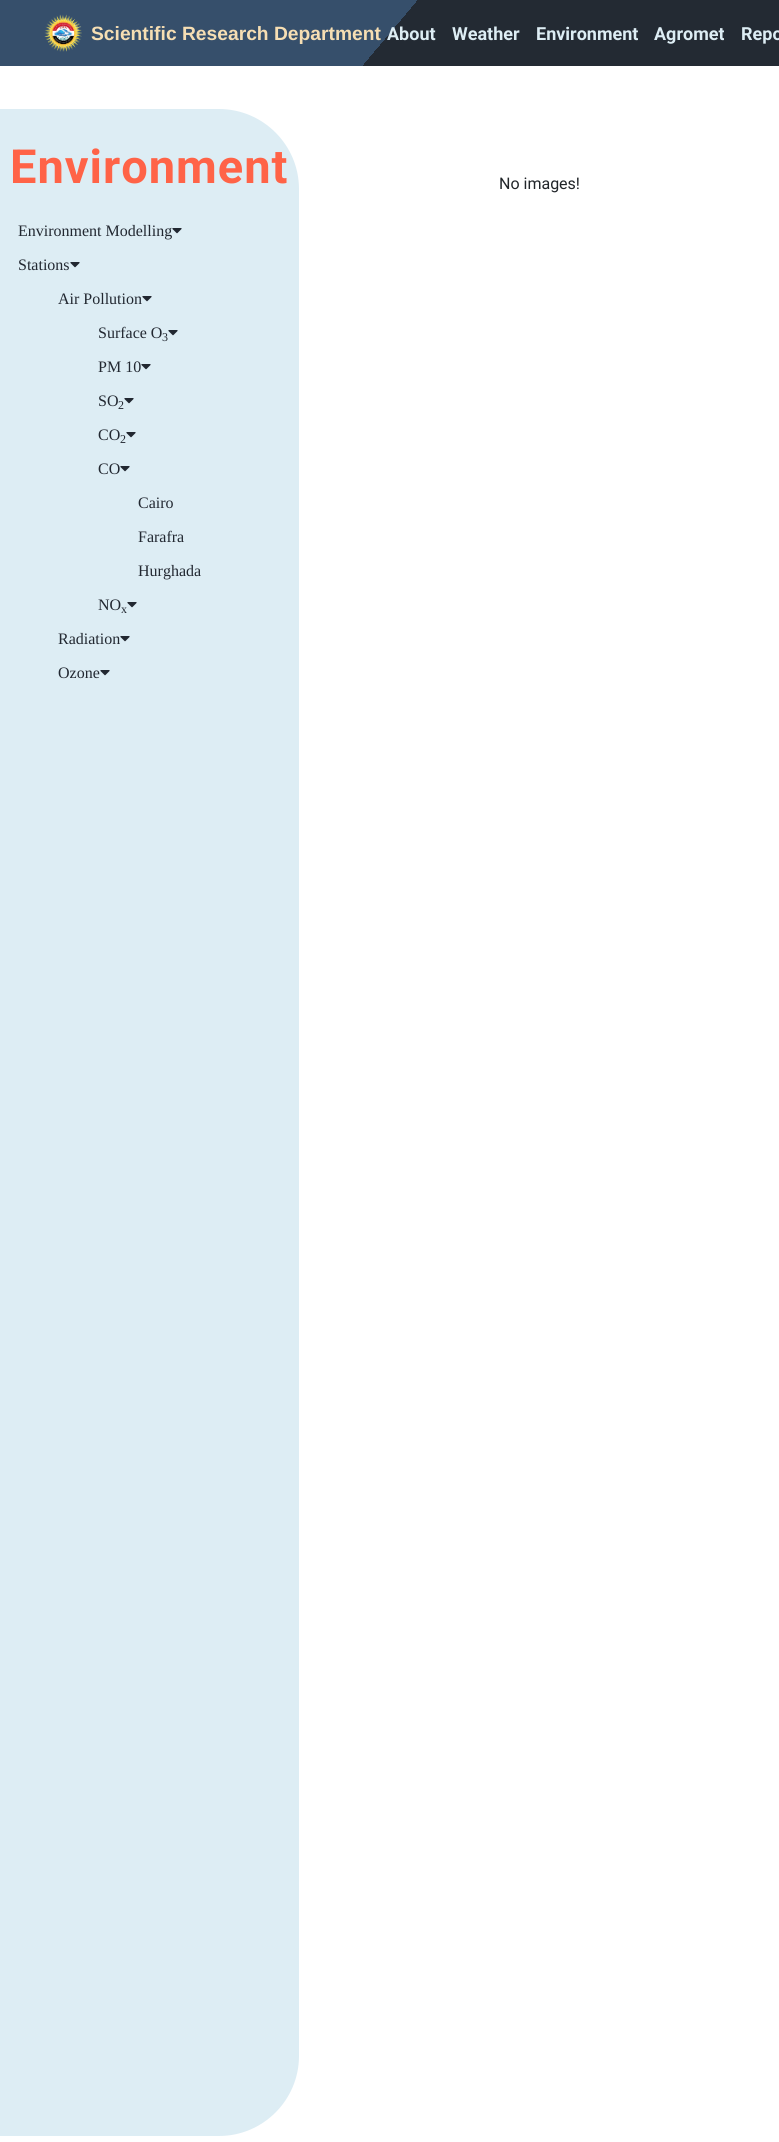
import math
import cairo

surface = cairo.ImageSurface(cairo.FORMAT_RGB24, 779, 2142)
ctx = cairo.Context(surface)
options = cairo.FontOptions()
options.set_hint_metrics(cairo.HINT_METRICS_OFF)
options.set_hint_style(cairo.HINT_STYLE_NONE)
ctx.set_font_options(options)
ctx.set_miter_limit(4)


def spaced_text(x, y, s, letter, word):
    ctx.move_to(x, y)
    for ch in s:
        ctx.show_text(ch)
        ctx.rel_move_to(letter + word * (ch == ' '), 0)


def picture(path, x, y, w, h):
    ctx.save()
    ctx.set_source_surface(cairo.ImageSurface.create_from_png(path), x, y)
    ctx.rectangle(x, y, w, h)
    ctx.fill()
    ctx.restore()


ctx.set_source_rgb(1, 1, 1)
ctx.paint()
gradient = cairo.LinearGradient(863, 430, -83, -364)
gradient.add_color_stop_rgba(0.5, 0.149, 0.188, 0.239, 1)
gradient.add_color_stop_rgba(0.5, 0.212, 0.31, 0.42, 1)
ctx.set_source(gradient)
ctx.rectangle(0, 0, 779, 66)
ctx.fill()
gradient = cairo.LinearGradient(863, 430, -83, -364)
gradient.add_color_stop_rgba(0.5, 0.133, 0.157, 0.192, 0.8)
gradient.add_color_stop_rgba(0.5, 0.212, 0.31, 0.42, 0.8)
ctx.set_source(gradient)
ctx.rectangle(363, 0, 416, 66)
ctx.fill()
picture("img1.png", 44, 14, 38, 38)
ctx.select_font_face("Liberation Sans", cairo.FONT_SLANT_NORMAL, cairo.FONT_WEIGHT_BOLD)
ctx.set_font_size(19.25)
ctx.set_source_rgb(0.961, 0.871, 0.702)
ctx.move_to(91, 40)
ctx.show_text("Scientific Research Department")
ctx.select_font_face("Roboto", cairo.FONT_SLANT_NORMAL, cairo.FONT_WEIGHT_BOLD)
ctx.set_font_size(18)
ctx.set_source_rgb(0.867, 0.929, 0.957)
ctx.move_to(387, 40)
ctx.show_text("About")
ctx.move_to(452, 40)
ctx.show_text("Weather")
ctx.move_to(536, 40)
ctx.show_text("Environment")
ctx.move_to(654, 40)
ctx.show_text("Agromet")
ctx.move_to(741, 40)
ctx.show_text("Repo")
ctx.new_path()
ctx.move_to(0, 109)
ctx.line_to(219, 109)
ctx.curve_to(263, 109, 299, 145, 299, 189)
ctx.line_to(299, 2056)
ctx.curve_to(299, 2100, 263, 2136, 219, 2136)
ctx.line_to(0, 2136)
ctx.close_path()
ctx.fill()
ctx.set_font_size(47)
ctx.set_source_rgb(1, 0.388, 0.278)
spaced_text(10, 183, "Environment", 1, 0)
ctx.select_font_face("Liberation Serif")
ctx.set_font_size(16)
ctx.set_source_rgb(0.133, 0.157, 0.192)
ctx.move_to(18, 236)
ctx.show_text("Environment Modelling")
picture("img2.png", 172, 228, 10, 6)
ctx.move_to(18, 270)
ctx.show_text("Stations")
picture("img2.png", 70, 262, 10, 6)
ctx.move_to(58, 304)
ctx.show_text("Air Pollution")
picture("img2.png", 142, 296, 10, 6)
ctx.move_to(98, 338)
ctx.show_text("Surface O")
ctx.set_font_size(12)
ctx.move_to(162, 341)
ctx.show_text("3")
picture("img2.png", 168, 330, 10, 6)
ctx.set_font_size(16)
ctx.move_to(98, 372)
ctx.show_text("PM 10")
picture("img2.png", 141, 364, 10, 6)
ctx.move_to(98, 406)
ctx.show_text("SO")
ctx.set_font_size(12)
ctx.move_to(118, 409)
ctx.show_text("2")
picture("img2.png", 124, 398, 10, 6)
ctx.set_font_size(16)
ctx.move_to(98, 440)
ctx.show_text("CO")
ctx.set_font_size(12)
ctx.move_to(120, 443)
ctx.show_text("2")
picture("img2.png", 126, 432, 10, 6)
ctx.set_font_size(16)
ctx.move_to(98, 474)
ctx.show_text("CO")
picture("img2.png", 120, 466, 10, 6)
ctx.move_to(138, 508)
ctx.show_text("Cairo")
ctx.move_to(138, 542)
ctx.show_text("Farafra")
ctx.move_to(138, 576)
ctx.show_text("Hurghada")
ctx.move_to(98, 610)
ctx.show_text("NO")
picture("img2.png", 127, 602, 10, 6)
ctx.set_font_size(12)
ctx.move_to(121, 613)
ctx.show_text("x")
ctx.set_font_size(16)
ctx.move_to(58, 644)
ctx.show_text("Radiation")
picture("img2.png", 120, 636, 10, 6)
ctx.move_to(58, 678)
ctx.show_text("Ozone")
picture("img2.png", 100, 670, 10, 6)
ctx.select_font_face("Roboto")
ctx.set_source_rgb(0.129, 0.145, 0.161)
ctx.move_to(499, 189)
ctx.show_text("No images!")
surface.write_to_png("page.png")
